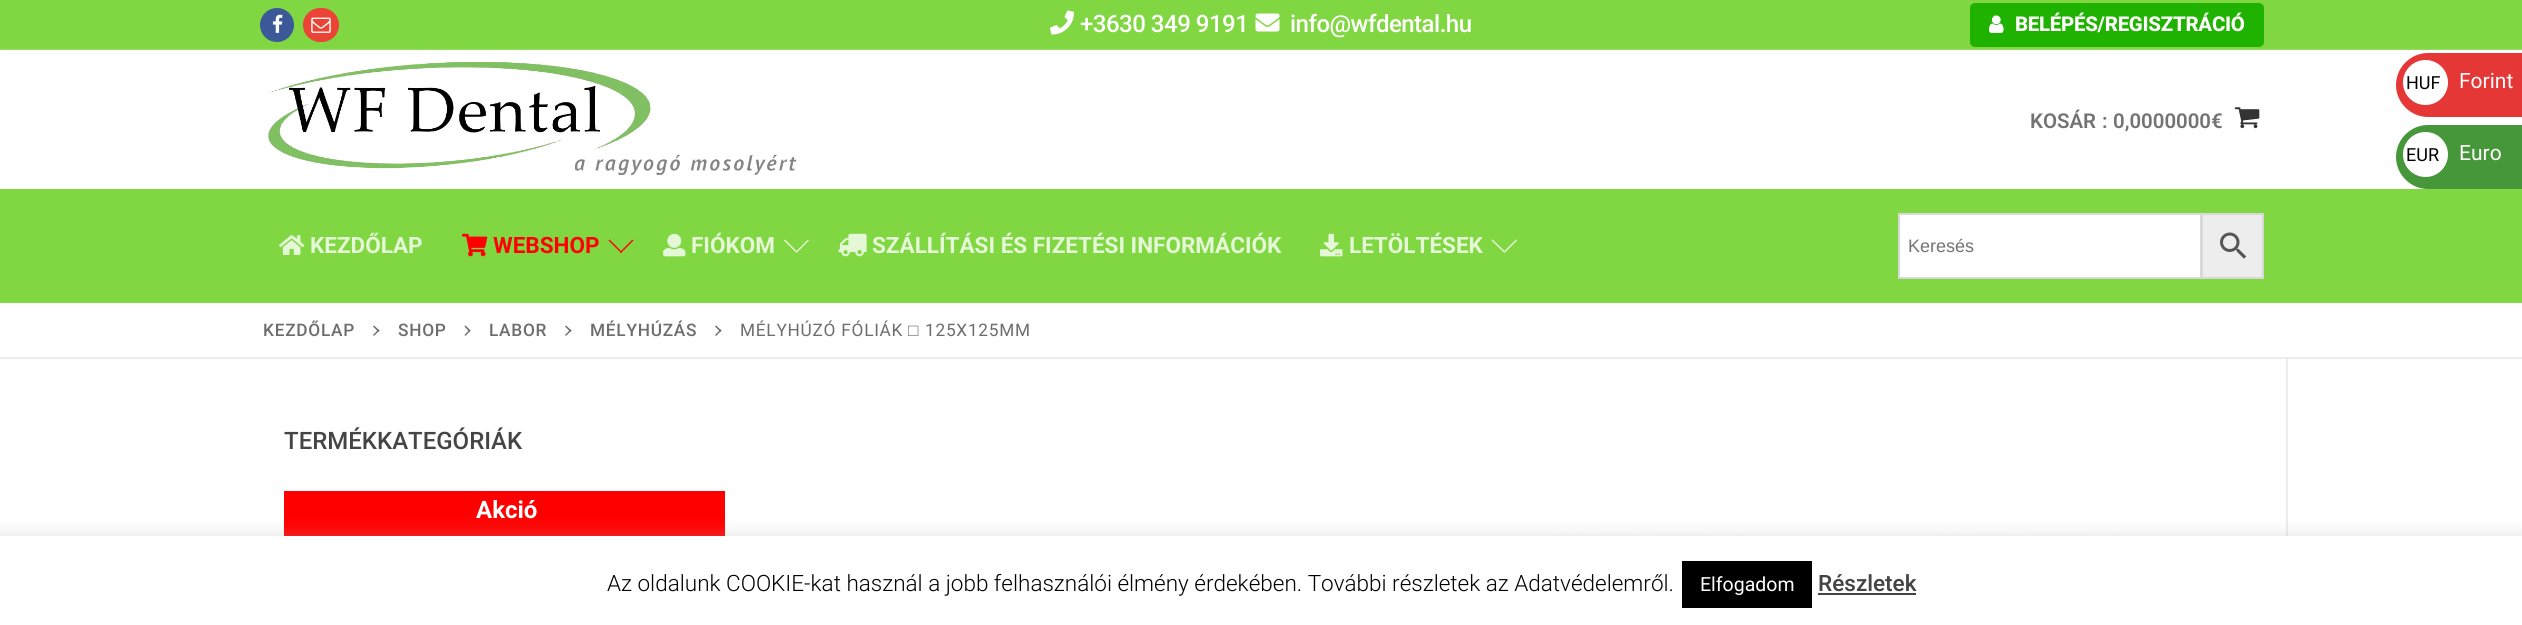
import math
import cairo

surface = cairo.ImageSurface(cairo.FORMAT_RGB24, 2522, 625)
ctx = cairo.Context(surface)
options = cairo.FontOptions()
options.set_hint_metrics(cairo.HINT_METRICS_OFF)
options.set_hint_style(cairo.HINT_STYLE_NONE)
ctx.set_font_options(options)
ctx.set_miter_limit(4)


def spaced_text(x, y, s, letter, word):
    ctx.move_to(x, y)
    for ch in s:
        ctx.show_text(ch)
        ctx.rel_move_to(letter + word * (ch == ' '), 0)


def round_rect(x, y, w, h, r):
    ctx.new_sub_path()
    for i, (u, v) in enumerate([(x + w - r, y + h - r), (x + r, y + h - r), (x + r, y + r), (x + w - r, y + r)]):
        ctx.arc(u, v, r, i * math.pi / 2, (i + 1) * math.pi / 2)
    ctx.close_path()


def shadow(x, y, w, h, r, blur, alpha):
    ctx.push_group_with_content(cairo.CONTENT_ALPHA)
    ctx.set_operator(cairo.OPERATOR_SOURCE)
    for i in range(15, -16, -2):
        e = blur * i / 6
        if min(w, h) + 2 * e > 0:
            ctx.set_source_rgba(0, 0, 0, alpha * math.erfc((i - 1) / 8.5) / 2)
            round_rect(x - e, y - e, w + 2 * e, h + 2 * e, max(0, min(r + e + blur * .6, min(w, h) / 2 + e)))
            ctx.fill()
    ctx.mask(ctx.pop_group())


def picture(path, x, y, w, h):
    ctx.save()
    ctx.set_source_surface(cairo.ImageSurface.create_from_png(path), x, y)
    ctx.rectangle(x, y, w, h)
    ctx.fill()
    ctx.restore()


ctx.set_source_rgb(1, 1, 1)
ctx.paint()
ctx.set_source_rgb(0.506, 0.843, 0.259)
ctx.rectangle(0, 0, 2522, 50)
ctx.fill()
ctx.set_source_rgb(0.231, 0.349, 0.596)
ctx.arc(277, 25, 17, 0, 2 * math.pi)
ctx.fill()
picture("img1.png", 272, 14, 11, 19)
ctx.set_source_rgb(0.918, 0.263, 0.208)
round_rect(303, 8, 36, 34, 17)
ctx.fill()
picture("img2.png", 311, 17, 20, 16)
picture("img3.png", 1050, 10, 24, 25)
ctx.select_font_face("Roboto Medium")
ctx.set_font_size(24)
ctx.set_source_rgb(1, 1, 1)
spaced_text(1080, 32, "+3630 349 9191", -0.5, 0)
picture("img4.png", 1255, 13, 25, 19)
spaced_text(1290, 32, "info@wfdental.hu", -0.5, 0)
ctx.save()
ctx.rectangle(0, 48, 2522, 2)
ctx.clip()
ctx.set_source_rgb(0.882, 0.898, 0.918)
shadow(0, 51, 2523, 140, 0, 1.5, 1)
ctx.restore()
ctx.set_source_rgb(0.125, 0.698, 0)
round_rect(1970, 3, 294, 44, 5)
ctx.fill()
picture("img5.png", 1989, 15, 15, 18)
ctx.select_font_face("Roboto ExtraBold")
ctx.set_font_size(20.4)
ctx.set_source_rgb(1, 1, 1)
spaced_text(2015, 31, "BELÉPÉS/REGISZTRÁCIÓ", -0.25, 0)
picture("img6.png", 268, 62, 529, 113)
ctx.select_font_face("Roboto SemiBold")
ctx.set_source_rgb(0.451, 0.451, 0.451)
ctx.move_to(2030, 128)
ctx.show_text("KOSÁR")
ctx.move_to(2102, 128)
ctx.show_text(":")
ctx.move_to(2113, 128)
ctx.show_text("0,0000000€")
picture("img7.png", 2234, 107, 26, 22)
ctx.set_source_rgb(0.506, 0.843, 0.259)
ctx.rectangle(0, 189, 2522, 114)
ctx.fill()
picture("img8.png", 279, 235, 26, 20)
ctx.select_font_face("Roboto", cairo.FONT_SLANT_NORMAL, cairo.FONT_WEIGHT_BOLD)
ctx.set_font_size(22.5)
ctx.set_source_rgb(0.898, 0.969, 0.843)
ctx.move_to(310, 253)
ctx.show_text("KEZDŐLAP")
picture("img9.png", 462, 233, 26, 24)
ctx.set_source_rgb(1, 0, 0)
ctx.move_to(493, 253)
ctx.show_text("WEBSHOP")
ctx.new_path()
ctx.move_to(621, 253)
ctx.line_to(608.5, 240.5)
ctx.line_to(609.5, 239.5)
ctx.line_to(622, 252)
ctx.close_path()
ctx.fill()
ctx.new_path()
ctx.move_to(621, 253)
ctx.line_to(620, 252)
ctx.line_to(632.5, 239.5)
ctx.line_to(633.5, 240.5)
ctx.close_path()
ctx.fill()
picture("img10.png", 663, 233, 23, 24)
ctx.set_source_rgb(0.898, 0.969, 0.843)
ctx.move_to(691, 253)
ctx.show_text("FIÓKOM")
ctx.new_path()
ctx.move_to(796.5, 253)
ctx.line_to(784, 240.5)
ctx.line_to(785, 239.5)
ctx.line_to(796.5, 251)
ctx.close_path()
ctx.fill()
ctx.set_source_rgba(1, 1, 1, 0.79)
ctx.new_path()
ctx.move_to(809, 240.5)
ctx.line_to(796.5, 253)
ctx.line_to(796.5, 251)
ctx.line_to(808, 239.5)
ctx.close_path()
ctx.fill()
picture("img11.png", 838, 233, 29, 24)
ctx.set_source_rgb(0.898, 0.969, 0.843)
ctx.move_to(872, 253)
ctx.show_text("SZÁLLÍTÁSI ÉS FIZETÉSI INFORMÁCIÓK")
picture("img12.png", 1320, 233, 23, 24)
ctx.move_to(1349, 253)
ctx.show_text("LETÖLTÉSEK")
ctx.new_path()
ctx.move_to(1504.5, 253)
ctx.line_to(1491.5, 240.5)
ctx.line_to(1492.5, 239.5)
ctx.line_to(1504.5, 251)
ctx.close_path()
ctx.fill()
ctx.set_source_rgba(1, 1, 1, 0.79)
ctx.new_path()
ctx.move_to(1517, 240.5)
ctx.line_to(1504.5, 253)
ctx.line_to(1504.5, 251)
ctx.line_to(1516, 239.5)
ctx.close_path()
ctx.fill()
ctx.set_source_rgb(0.929, 0.929, 0.929)
ctx.rectangle(2202, 214, 61, 64)
ctx.fill_preserve()
ctx.set_source_rgb(0.847, 0.847, 0.847)
ctx.stroke()
ctx.set_source_rgb(1, 1, 1)
ctx.rectangle(1899, 214, 302, 64)
ctx.fill_preserve()
ctx.set_source_rgb(0.847, 0.847, 0.847)
ctx.stroke()
ctx.select_font_face("Liberation Sans")
ctx.set_font_size(18)
ctx.set_source_rgb(0.451, 0.451, 0.451)
ctx.move_to(1908, 252)
ctx.show_text("Keresés")
picture("img13.png", 2220, 232, 27, 27)
ctx.set_source_rgb(0.918, 0.925, 0.933)
ctx.rectangle(0, 357, 2522, 2)
ctx.fill()
ctx.select_font_face("Roboto Medium")
ctx.set_font_size(17.25)
ctx.set_source_rgb(0.427, 0.427, 0.427)
spaced_text(263, 336, "KEZDŐLAP", 0.75, 0)
ctx.new_path()
ctx.move_to(379.5, 330.5)
ctx.line_to(374, 336)
ctx.line_to(373, 335)
ctx.line_to(378.5, 329.5)
ctx.close_path()
ctx.fill()
ctx.new_path()
ctx.move_to(379.5, 330.5)
ctx.line_to(378.5, 332)
ctx.line_to(373, 326.5)
ctx.line_to(374, 325.5)
ctx.close_path()
ctx.fill()
spaced_text(398, 336, "SHOP", 0.75, 0)
ctx.new_path()
ctx.move_to(470.5, 330.5)
ctx.line_to(465.5, 336)
ctx.line_to(464.5, 335)
ctx.line_to(469.5, 329.5)
ctx.close_path()
ctx.fill()
ctx.new_path()
ctx.move_to(470.5, 330.5)
ctx.line_to(469.5, 332)
ctx.line_to(464.5, 326.5)
ctx.line_to(465.5, 325.5)
ctx.close_path()
ctx.fill()
spaced_text(489, 336, "LABOR", 0.75, 0)
ctx.new_path()
ctx.move_to(571.5, 330.5)
ctx.line_to(566, 336)
ctx.line_to(565, 335)
ctx.line_to(570.5, 329.5)
ctx.close_path()
ctx.fill()
ctx.new_path()
ctx.move_to(571.5, 330.5)
ctx.line_to(570.5, 332)
ctx.line_to(565, 326.5)
ctx.line_to(566, 325.5)
ctx.close_path()
ctx.fill()
spaced_text(590, 336, "MÉLYHÚZÁS", 0.75, 0)
ctx.new_path()
ctx.move_to(721.5, 330.5)
ctx.line_to(716, 336)
ctx.line_to(715, 335)
ctx.line_to(720.5, 329.5)
ctx.close_path()
ctx.fill()
ctx.new_path()
ctx.move_to(721.5, 330.5)
ctx.line_to(720.5, 332)
ctx.line_to(715, 326.5)
ctx.line_to(716, 325.5)
ctx.close_path()
ctx.fill()
ctx.select_font_face("Roboto")
spaced_text(740, 336, "MÉLYHÚZÓ FÓLIÁK", 0.75, 0)
ctx.select_font_face("Liberation Sans")
spaced_text(908, 336, "□", 0.75, 0)
ctx.select_font_face("Roboto")
spaced_text(925, 336, "125X125MM", 0.75, 0)
ctx.select_font_face("Roboto Medium")
ctx.set_font_size(24)
ctx.set_source_rgb(0.267, 0.267, 0.267)
ctx.move_to(284, 449)
ctx.show_text("TERMÉKKATEGÓRIÁK")
ctx.set_source_rgb(1, 0, 0)
ctx.rectangle(284, 491, 441, 45)
ctx.fill()
ctx.select_font_face("Roboto", cairo.FONT_SLANT_NORMAL, cairo.FONT_WEIGHT_BOLD)
ctx.set_source_rgb(1, 1, 1)
ctx.move_to(476, 518)
ctx.show_text("Akció")
ctx.set_source_rgb(0.918, 0.925, 0.933)
ctx.rectangle(2286, 359, 2, 177)
ctx.fill()
picture("img14.png", 1543, 534, 295, 2)
picture("img14.png", 1921, 534, 295, 2)
ctx.set_source_rgb(0.902, 0.216, 0.216)
ctx.new_path()
ctx.move_to(2428, 53)
ctx.line_to(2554, 53)
ctx.line_to(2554, 117)
ctx.line_to(2428, 117)
ctx.curve_to(2410.5, 117, 2396, 102.5, 2396, 85)
ctx.curve_to(2396, 67.5, 2410.5, 53, 2428, 53)
ctx.close_path()
ctx.fill()
ctx.set_source_rgb(1, 1, 1)
ctx.arc(2425.5, 82.5, 22.5, 0, 2 * math.pi)
ctx.fill()
ctx.select_font_face("Roboto")
ctx.set_font_size(18)
ctx.set_source_rgb(0, 0, 0)
ctx.move_to(2406, 89)
ctx.show_text("HUF")
ctx.set_font_size(21)
ctx.set_source_rgb(1, 1, 1)
ctx.move_to(2459, 88)
ctx.show_text("Forint")
ctx.set_source_rgb(0.275, 0.588, 0.227)
ctx.new_path()
ctx.move_to(2428, 125)
ctx.line_to(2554, 125)
ctx.line_to(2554, 189)
ctx.line_to(2428, 189)
ctx.curve_to(2410.5, 189, 2396, 174.5, 2396, 157)
ctx.curve_to(2396, 139.5, 2410.5, 125, 2428, 125)
ctx.close_path()
ctx.fill()
ctx.set_source_rgb(1, 1, 1)
ctx.arc(2425.5, 154.5, 22.5, 0, 2 * math.pi)
ctx.fill()
ctx.set_font_size(18)
ctx.set_source_rgb(0, 0, 0)
ctx.move_to(2406, 161)
ctx.show_text("EUR")
ctx.set_font_size(21)
ctx.set_source_rgb(1, 1, 1)
ctx.move_to(2459, 160)
ctx.show_text("Euro")
ctx.set_source_rgb(0.675, 0.671, 0.671)
shadow(0, 534, 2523, 90, 0, 7.5, 0.3)
ctx.set_source_rgb(1, 1, 1)
ctx.rectangle(0, 536, 2522, 89)
ctx.fill()
ctx.select_font_face("Roboto Light")
ctx.set_font_size(22.5)
ctx.set_source_rgb(0, 0, 0)
ctx.move_to(607, 591)
ctx.show_text("Az oldalunk COOKIE-kat használ a jobb felhasználói élmény érdekében. További részletek az Adatvédelemről.")
ctx.rectangle(1682, 561, 130, 47)
ctx.fill()
ctx.select_font_face("Roboto")
ctx.set_font_size(19.5)
ctx.set_source_rgb(1, 1, 1)
ctx.move_to(1700, 591)
ctx.show_text("Elfogadom")
ctx.select_font_face("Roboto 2 Medium")
ctx.set_font_size(22.5)
ctx.set_source_rgb(0.267, 0.267, 0.267)
ctx.move_to(1818, 591)
ctx.show_text("Részletek")
ctx.rectangle(1818, 593, 98, 2)
ctx.fill()
surface.write_to_png("page.png")
